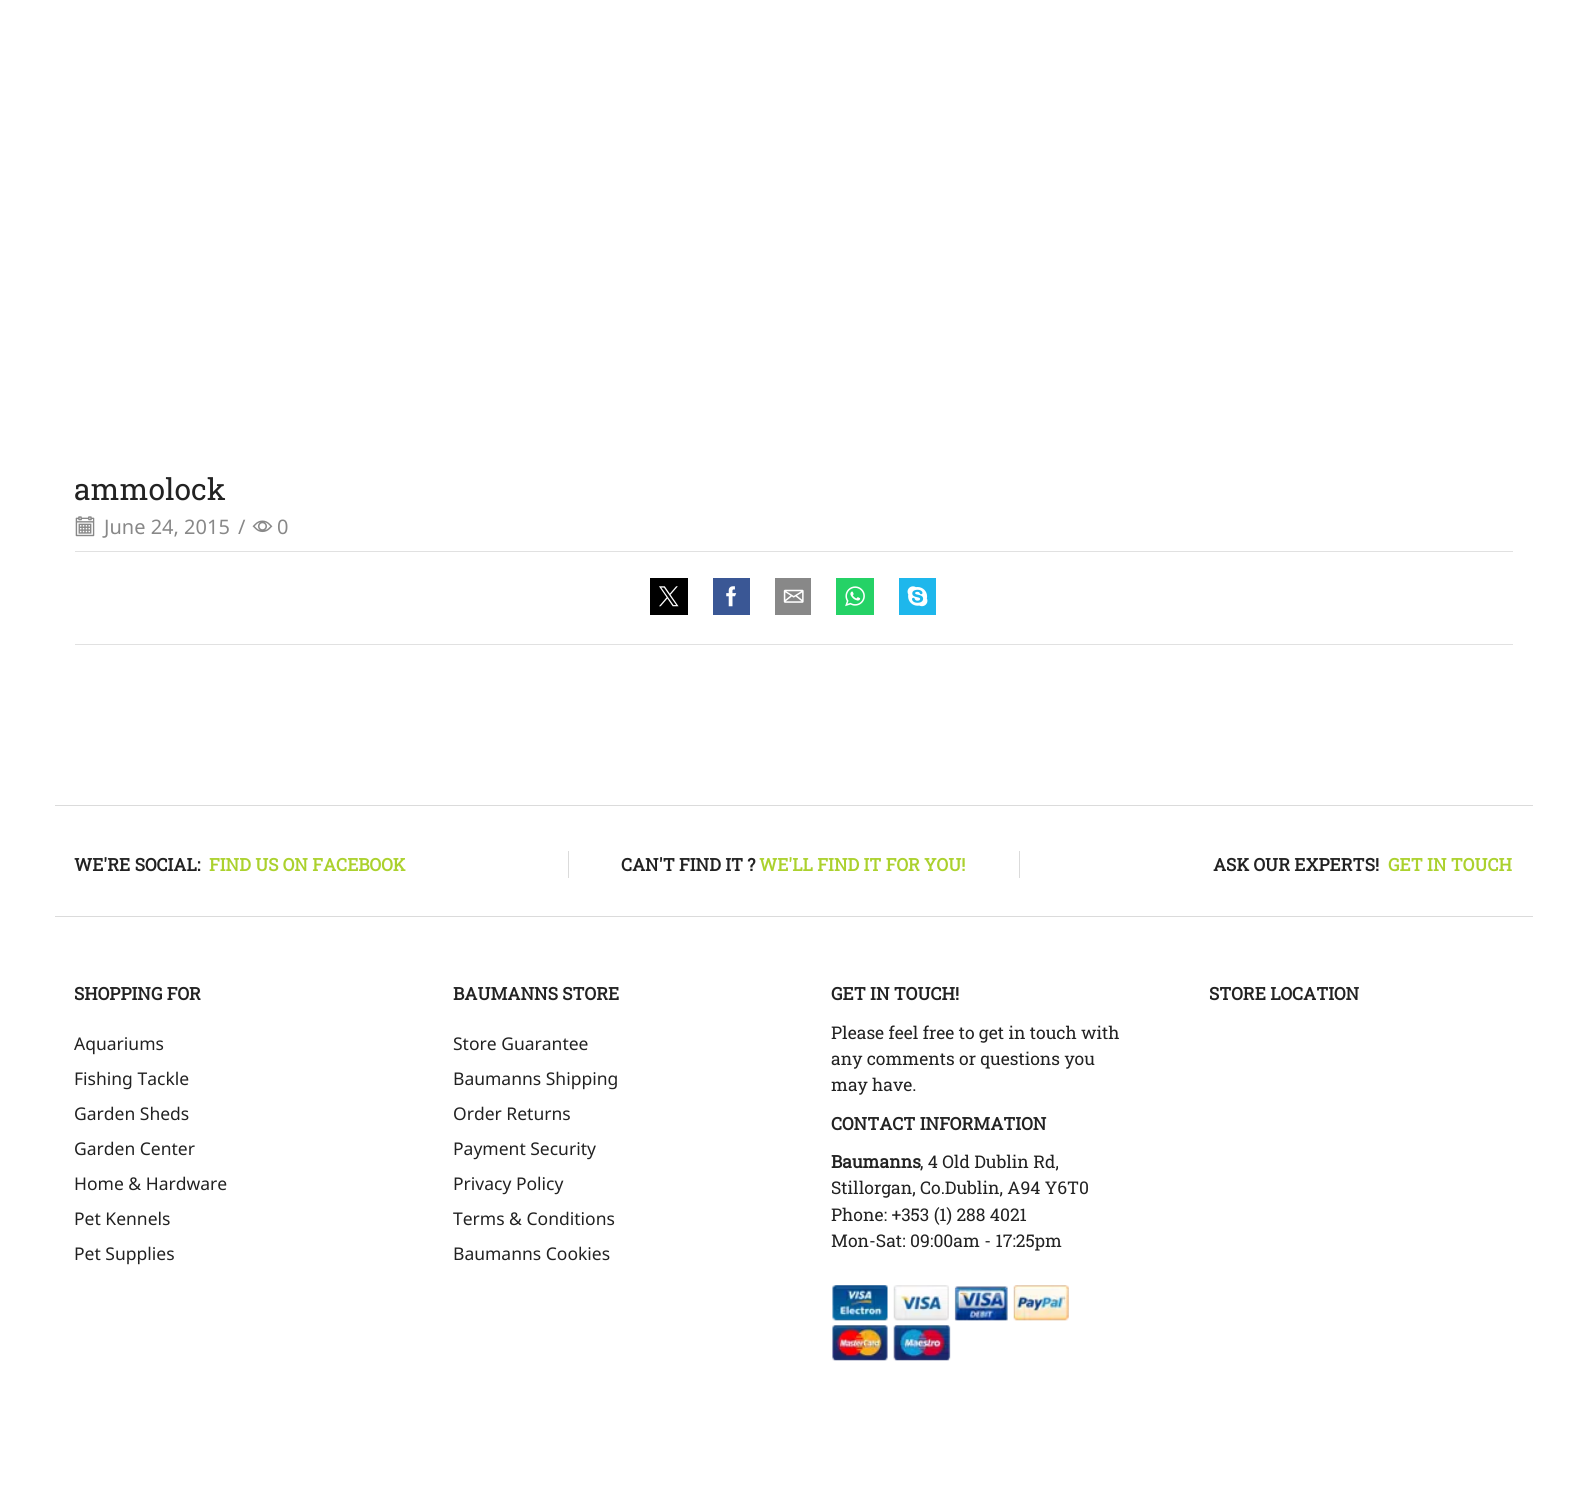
import math
import cairo

surface = cairo.ImageSurface(cairo.FORMAT_RGB24, 1586, 1503)
ctx = cairo.Context(surface)
options = cairo.FontOptions()
options.set_hint_metrics(cairo.HINT_METRICS_OFF)
options.set_hint_style(cairo.HINT_STYLE_NONE)
ctx.set_font_options(options)
ctx.set_miter_limit(4)


def picture(path, x, y, w, h):
    ctx.save()
    ctx.set_source_surface(cairo.ImageSurface.create_from_png(path), x, y)
    ctx.rectangle(x, y, w, h)
    ctx.fill()
    ctx.restore()


ctx.set_source_rgb(1, 1, 1)
ctx.paint()
ctx.select_font_face("Roboto Slab")
ctx.set_font_size(30)
ctx.set_source_rgb(0.133, 0.133, 0.133)
ctx.move_to(74, 500)
ctx.show_text("ammolock")
picture("img1.png", 75, 516, 20, 21)
ctx.select_font_face("Noto Sans")
ctx.set_font_size(20)
ctx.set_source_rgb(0.533, 0.533, 0.533)
ctx.move_to(104, 534)
ctx.show_text("June 24, 2015")
ctx.move_to(238, 534)
ctx.show_text("/")
picture("img2.png", 252, 520, 21, 13)
ctx.move_to(277, 534)
ctx.show_text("0")
ctx.set_source_rgb(0.882, 0.882, 0.882)
ctx.rectangle(75, 551, 1438, 1)
ctx.fill()
ctx.rectangle(75, 644, 1438, 1)
ctx.fill()
ctx.set_source_rgb(0, 0, 0)
ctx.rectangle(650, 578, 38, 37)
ctx.fill()
picture("img3.png", 659, 586, 20, 21)
ctx.set_source_rgb(0.227, 0.341, 0.584)
ctx.rectangle(713, 578, 37, 37)
ctx.fill()
picture("img4.png", 726, 586, 11, 21)
ctx.set_source_rgb(0.533, 0.533, 0.533)
ctx.rectangle(775, 578, 36, 37)
ctx.fill()
picture("img5.png", 783, 589, 21, 14)
ctx.set_source_rgb(0.145, 0.824, 0.4)
ctx.rectangle(836, 578, 38, 37)
ctx.fill()
picture("img6.png", 845, 586, 20, 21)
ctx.set_source_rgb(0.118, 0.718, 0.925)
ctx.rectangle(899, 578, 37, 37)
ctx.fill()
picture("img7.png", 907, 586, 21, 21)
ctx.set_source_rgb(0.859, 0.859, 0.859)
ctx.rectangle(55, 805, 1478, 1)
ctx.fill()
ctx.rectangle(55, 916, 1478, 1)
ctx.fill()
ctx.select_font_face("Roboto Slab", cairo.FONT_SLANT_NORMAL, cairo.FONT_WEIGHT_BOLD)
ctx.set_font_size(17.5)
ctx.set_source_rgb(0.133, 0.133, 0.133)
ctx.move_to(74, 871)
ctx.show_text("WE'RE SOCIAL:")
ctx.set_source_rgb(0.671, 0.82, 0.18)
ctx.move_to(209, 871)
ctx.show_text("FIND US ON FACEBOOK")
ctx.set_source_rgb(0.859, 0.859, 0.859)
ctx.rectangle(1019, 851, 1, 27)
ctx.fill()
ctx.rectangle(568, 851, 1, 27)
ctx.fill()
ctx.set_source_rgb(0.133, 0.133, 0.133)
ctx.move_to(621, 871)
ctx.show_text("CAN'T FIND IT ?")
ctx.set_source_rgb(0.671, 0.82, 0.18)
ctx.move_to(759, 871)
ctx.show_text("WE'LL FIND IT FOR YOU!")
ctx.set_source_rgb(0.133, 0.133, 0.133)
ctx.move_to(1213, 871)
ctx.show_text("ASK OUR EXPERTS!")
ctx.set_source_rgb(0.671, 0.82, 0.18)
ctx.move_to(1388, 871)
ctx.show_text("GET IN TOUCH")
ctx.set_source_rgb(0.133, 0.133, 0.133)
ctx.move_to(74, 1000)
ctx.show_text("SHOPPING FOR")
ctx.select_font_face("Noto Sans")
ctx.move_to(74, 1050)
ctx.show_text("Aquariums")
ctx.move_to(74, 1085)
ctx.show_text("Fishing Tackle")
ctx.move_to(74, 1120)
ctx.show_text("Garden Sheds")
ctx.move_to(74, 1155)
ctx.show_text("Garden Center")
ctx.move_to(74, 1190)
ctx.show_text("Home & Hardware")
ctx.move_to(74, 1225)
ctx.show_text("Pet Kennels")
ctx.move_to(74, 1260)
ctx.show_text("Pet Supplies")
ctx.select_font_face("Roboto Slab", cairo.FONT_SLANT_NORMAL, cairo.FONT_WEIGHT_BOLD)
ctx.move_to(453, 1000)
ctx.show_text("BAUMANNS STORE")
ctx.select_font_face("Noto Sans")
ctx.move_to(453, 1050)
ctx.show_text("Store Guarantee")
ctx.move_to(453, 1085)
ctx.show_text("Baumanns Shipping")
ctx.move_to(453, 1120)
ctx.show_text("Order Returns")
ctx.move_to(453, 1155)
ctx.show_text("Payment Security")
ctx.move_to(453, 1190)
ctx.show_text("Privacy Policy")
ctx.move_to(453, 1225)
ctx.show_text("Terms & Conditions")
ctx.move_to(453, 1260)
ctx.show_text("Baumanns Cookies")
ctx.select_font_face("Roboto Slab", cairo.FONT_SLANT_NORMAL, cairo.FONT_WEIGHT_BOLD)
ctx.move_to(831, 1000)
ctx.show_text("GET IN TOUCH!")
ctx.select_font_face("Roboto Slab")
ctx.move_to(831, 1039)
ctx.show_text("Please feel free to get in touch with")
ctx.move_to(831, 1065)
ctx.show_text("any comments or questions you")
ctx.move_to(831, 1091)
ctx.show_text("may have.")
ctx.select_font_face("Roboto Slab", cairo.FONT_SLANT_NORMAL, cairo.FONT_WEIGHT_BOLD)
ctx.move_to(831, 1130)
ctx.show_text("CONTACT INFORMATION")
ctx.move_to(831, 1168)
ctx.show_text("Baumanns")
ctx.select_font_face("Roboto Slab")
ctx.move_to(920, 1168)
ctx.show_text(", 4 Old Dublin Rd,")
ctx.move_to(831, 1194)
ctx.show_text("Stillorgan, Co.Dublin, A94 Y6T0")
ctx.move_to(831, 1221)
ctx.show_text("Phone: +353 (1) 288 4021")
ctx.move_to(831, 1247)
ctx.show_text("Mon-Sat: 09:00am - 17:25pm")
picture("img8.png", 832, 1285, 237, 76)
ctx.select_font_face("Roboto Slab", cairo.FONT_SLANT_NORMAL, cairo.FONT_WEIGHT_BOLD)
ctx.move_to(1209, 1000)
ctx.show_text("STORE LOCATION")
surface.write_to_png("page.png")
